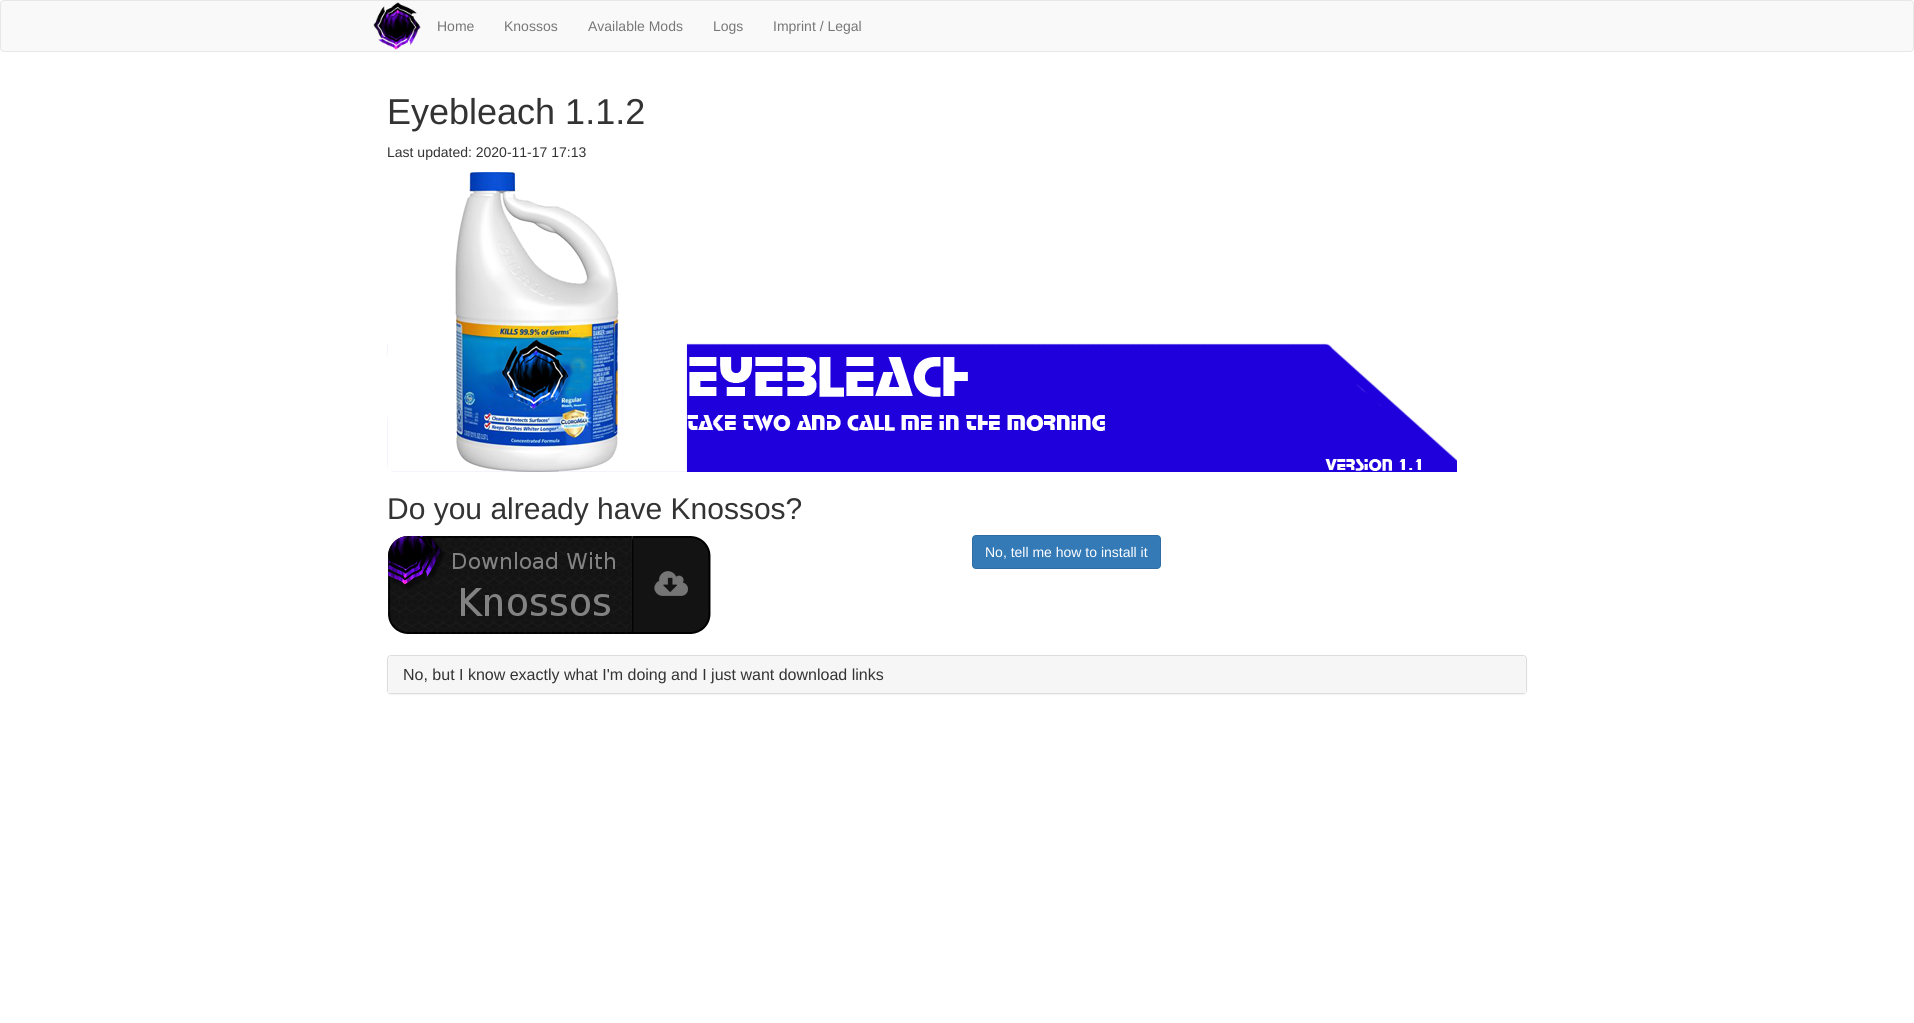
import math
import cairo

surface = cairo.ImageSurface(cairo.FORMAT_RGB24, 1914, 1023)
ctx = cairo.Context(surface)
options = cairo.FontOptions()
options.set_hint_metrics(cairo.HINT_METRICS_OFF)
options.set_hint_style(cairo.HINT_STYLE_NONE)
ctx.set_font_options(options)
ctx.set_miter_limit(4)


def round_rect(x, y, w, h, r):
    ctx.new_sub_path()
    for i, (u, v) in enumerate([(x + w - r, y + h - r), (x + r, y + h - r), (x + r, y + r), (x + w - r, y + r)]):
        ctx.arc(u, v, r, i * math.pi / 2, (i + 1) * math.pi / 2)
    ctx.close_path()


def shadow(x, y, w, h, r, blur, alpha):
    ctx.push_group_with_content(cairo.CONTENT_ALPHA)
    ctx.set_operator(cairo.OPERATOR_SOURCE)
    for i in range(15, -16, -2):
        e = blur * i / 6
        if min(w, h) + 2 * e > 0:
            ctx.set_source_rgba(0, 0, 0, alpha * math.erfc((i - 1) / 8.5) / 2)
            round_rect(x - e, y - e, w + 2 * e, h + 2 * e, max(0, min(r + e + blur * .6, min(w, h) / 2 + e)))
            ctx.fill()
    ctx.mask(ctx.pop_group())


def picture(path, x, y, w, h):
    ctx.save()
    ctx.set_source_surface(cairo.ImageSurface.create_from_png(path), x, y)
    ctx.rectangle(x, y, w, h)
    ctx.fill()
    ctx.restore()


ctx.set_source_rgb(1, 1, 1)
ctx.paint()
ctx.set_source_rgb(0.973, 0.973, 0.973)
round_rect(0.5, 0.5, 1913, 51, 3.5)
ctx.fill_preserve()
ctx.set_source_rgb(0.906, 0.906, 0.906)
ctx.set_line_width(1)
ctx.stroke()
picture("img1.png", 373, 2, 48, 48)
ctx.select_font_face("Liberation Sans")
ctx.set_font_size(14)
ctx.set_source_rgb(0.467, 0.467, 0.467)
ctx.move_to(437, 31)
ctx.show_text("Home")
ctx.move_to(504, 31)
ctx.show_text("Knossos")
ctx.move_to(588, 31)
ctx.show_text("Available Mods")
ctx.move_to(713, 31)
ctx.show_text("Logs")
ctx.move_to(773, 31)
ctx.show_text("Imprint / Legal")
ctx.set_font_size(36)
ctx.set_source_rgb(0.2, 0.2, 0.2)
ctx.move_to(387, 124)
ctx.show_text("Eyebleach 1.1.2")
ctx.set_font_size(14)
ctx.move_to(387, 157)
ctx.show_text("Last updated: 2020-11-17 17:13")
picture("img2.png", 387, 172, 1070, 300)
ctx.set_font_size(30)
ctx.move_to(387, 519)
ctx.show_text("Do you already have Knossos?")
picture("img3.png", 388, 536, 323, 98)
ctx.set_source_rgb(0.2, 0.478, 0.718)
round_rect(972.5, 535.5, 188, 33, 3.5)
ctx.fill_preserve()
ctx.set_source_rgb(0.18, 0.427, 0.643)
ctx.stroke()
ctx.set_font_size(14)
ctx.set_source_rgb(1, 1, 1)
ctx.move_to(985, 557)
ctx.show_text("No, tell me how to install it")
ctx.set_source_rgb(0, 0, 0)
shadow(387, 656, 1140, 39, 4, 0.5, 0.05)
round_rect(387.5, 655.5, 1139, 38, 3.5)
ctx.set_source_rgb(0.867, 0.867, 0.867)
ctx.stroke()
ctx.set_source_rgb(0.961, 0.961, 0.961)
ctx.new_path()
ctx.move_to(391, 656)
ctx.line_to(1523, 656)
ctx.curve_to(1524.5, 656, 1526, 657.5, 1526, 659)
ctx.line_to(1526, 693)
ctx.line_to(388, 693)
ctx.line_to(388, 659)
ctx.curve_to(388, 657.5, 389.5, 656, 391, 656)
ctx.close_path()
ctx.fill()
ctx.set_font_size(16)
ctx.set_source_rgb(0.2, 0.2, 0.2)
ctx.move_to(403, 680)
ctx.show_text("No, but I know exactly what I'm doing and I just want download links")
surface.write_to_png("page.png")
